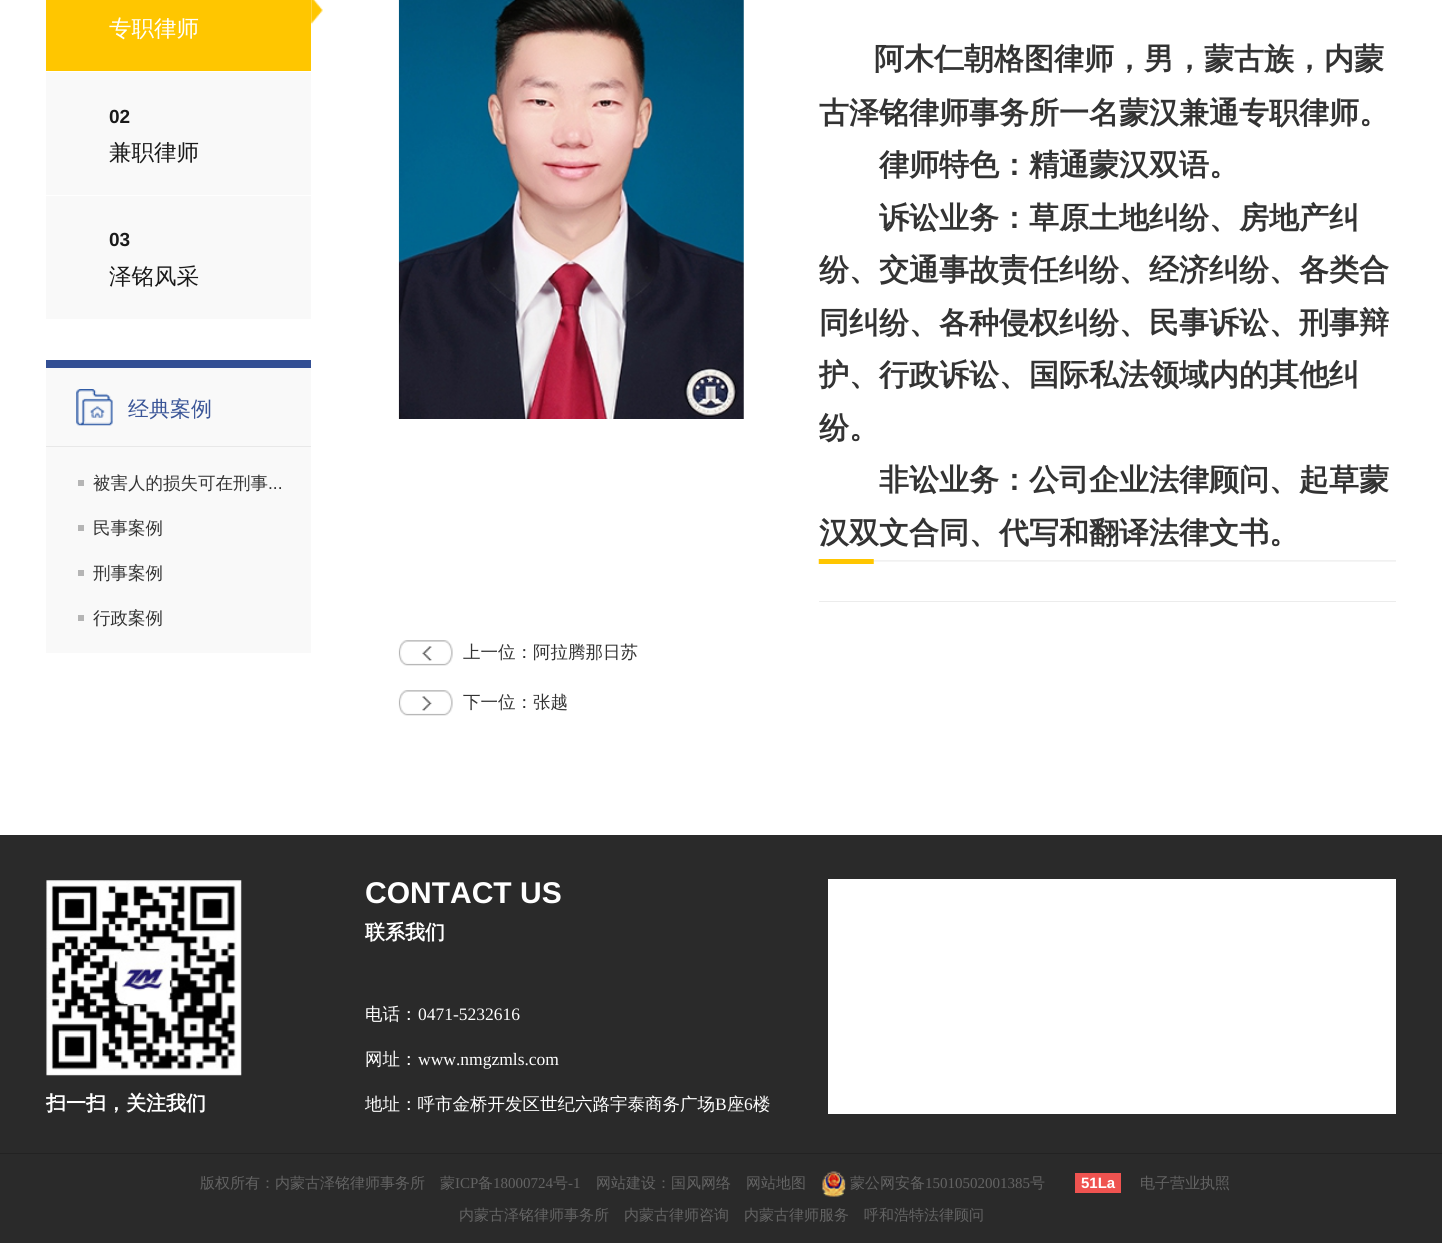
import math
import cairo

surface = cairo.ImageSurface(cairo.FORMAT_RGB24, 1442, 1243)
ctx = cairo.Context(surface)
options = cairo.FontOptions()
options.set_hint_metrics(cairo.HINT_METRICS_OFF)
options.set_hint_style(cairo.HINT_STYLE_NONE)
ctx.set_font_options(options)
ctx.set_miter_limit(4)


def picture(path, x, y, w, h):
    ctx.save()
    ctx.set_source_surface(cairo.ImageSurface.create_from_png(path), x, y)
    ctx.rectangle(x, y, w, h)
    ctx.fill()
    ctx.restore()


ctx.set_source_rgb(1, 1, 1)
ctx.paint()
ctx.set_source_rgb(0.976, 0.976, 0.976)
ctx.rectangle(46, 72, 265, 247)
ctx.fill()
picture("img1.png", 311, 0, 12, 25)
ctx.set_source_rgb(1, 0.776, 0)
ctx.rectangle(46, 0, 265, 71)
ctx.fill()
ctx.select_font_face("WenQuanYi Zen Hei Medium")
ctx.set_font_size(22.5)
ctx.set_source_rgb(1, 1, 1)
ctx.move_to(109, 36)
ctx.show_text("专职律师")
ctx.rectangle(46, 195, 265, 1)
ctx.fill()
ctx.select_font_face("Liberation Sans", cairo.FONT_SLANT_NORMAL, cairo.FONT_WEIGHT_BOLD)
ctx.set_font_size(19)
ctx.set_source_rgb(0.102, 0.102, 0.102)
ctx.move_to(109, 123)
ctx.show_text("02")
ctx.select_font_face("WenQuanYi Zen Hei Medium")
ctx.set_font_size(22.5)
ctx.move_to(109, 160)
ctx.show_text("兼职律师")
ctx.select_font_face("Liberation Sans", cairo.FONT_SLANT_NORMAL, cairo.FONT_WEIGHT_BOLD)
ctx.set_font_size(19)
ctx.move_to(109, 246)
ctx.show_text("03")
ctx.select_font_face("WenQuanYi Zen Hei Medium")
ctx.set_font_size(22.5)
ctx.move_to(109, 284)
ctx.show_text("泽铭风采")
ctx.set_source_rgb(0.976, 0.976, 0.976)
ctx.rectangle(46, 368, 265, 285)
ctx.fill()
ctx.set_source_rgb(0.2, 0.31, 0.58)
ctx.rectangle(46, 360, 265, 8)
ctx.fill()
picture("img2.png", 76, 389, 37, 37)
ctx.set_source_rgb(0.91, 0.91, 0.91)
ctx.rectangle(46, 446, 265, 1)
ctx.fill()
ctx.set_font_size(21)
ctx.set_source_rgb(0.227, 0.333, 0.592)
ctx.move_to(128, 416)
ctx.show_text("经典案例")
ctx.set_source_rgb(0.71, 0.71, 0.71)
ctx.rectangle(78, 480, 6, 6)
ctx.fill()
ctx.set_font_size(17.5)
ctx.set_source_rgb(0.2, 0.2, 0.2)
ctx.move_to(93, 489)
ctx.show_text("被害人的损失可在刑事")
ctx.select_font_face("Liberation Sans")
ctx.move_to(268, 489)
ctx.show_text("...")
ctx.set_source_rgb(0.71, 0.71, 0.71)
ctx.rectangle(78, 525, 6, 6)
ctx.fill()
ctx.select_font_face("WenQuanYi Zen Hei Medium")
ctx.set_source_rgb(0.2, 0.2, 0.2)
ctx.move_to(93, 534)
ctx.show_text("民事案例")
ctx.set_source_rgb(0.71, 0.71, 0.71)
ctx.rectangle(78, 570, 6, 6)
ctx.fill()
ctx.set_source_rgb(0.2, 0.2, 0.2)
ctx.move_to(93, 579)
ctx.show_text("刑事案例")
ctx.set_source_rgb(0.71, 0.71, 0.71)
ctx.rectangle(78, 615, 6, 6)
ctx.fill()
ctx.set_source_rgb(0.2, 0.2, 0.2)
ctx.move_to(93, 624)
ctx.show_text("行政案例")
picture("img3.png", 398, 0, 346, 419)
ctx.set_source_rgb(0.925, 0.925, 0.925)
ctx.rectangle(819, 601, 577, 1)
ctx.fill()
picture("img4.png", 818, 559, 578, 5)
ctx.select_font_face("WenQuanYi Zen Hei", cairo.FONT_SLANT_NORMAL, cairo.FONT_WEIGHT_BOLD)
ctx.set_font_size(30)
ctx.set_source_rgb(0.2, 0.2, 0.2)
ctx.move_to(874, 69)
ctx.show_text("阿木仁朝格图律师，男，蒙古族，内蒙")
ctx.move_to(819, 123)
ctx.show_text("古泽铭律师事务所一名蒙汉兼通专职律师。")
ctx.move_to(879, 175)
ctx.show_text("律师特色：精通蒙汉双语。")
ctx.move_to(879, 228)
ctx.show_text("诉讼业务：草原土地纠纷、房地产纠")
ctx.move_to(819, 280)
ctx.show_text("纷、交通事故责任纠纷、经济纠纷、各类合")
ctx.move_to(819, 333)
ctx.show_text("同纠纷、各种侵权纠纷、民事诉讼、刑事辩")
ctx.move_to(819, 385)
ctx.show_text("护、行政诉讼、国际私法领域内的其他纠")
ctx.move_to(819, 438)
ctx.show_text("纷。")
ctx.move_to(879, 490)
ctx.show_text("非讼业务：公司企业法律顾问、起草蒙")
ctx.move_to(819, 543)
ctx.show_text("汉双文合同、代写和翻译法律文书。")
picture("img5.png", 398, 640, 55, 26)
ctx.select_font_face("WenQuanYi Zen Hei Medium")
ctx.set_font_size(17.5)
ctx.move_to(463, 658)
ctx.show_text("上一位：阿拉腾那日苏")
picture("img6.png", 398, 690, 55, 26)
ctx.move_to(463, 708)
ctx.show_text("下一位：张越")
ctx.set_source_rgb(0.165, 0.165, 0.165)
ctx.rectangle(0, 835, 1442, 408)
ctx.fill()
ctx.set_source_rgb(0.133, 0.133, 0.133)
ctx.rectangle(0, 1153, 1442, 1)
ctx.fill()
picture("img7.png", 46, 880, 196, 196)
ctx.select_font_face("WenQuanYi Zen Hei", cairo.FONT_SLANT_NORMAL, cairo.FONT_WEIGHT_BOLD)
ctx.set_font_size(20)
ctx.set_source_rgb(1, 1, 1)
ctx.move_to(46, 1110)
ctx.show_text("扫一扫，关注我们")
ctx.select_font_face("Liberation Sans", cairo.FONT_SLANT_NORMAL, cairo.FONT_WEIGHT_BOLD)
ctx.set_font_size(30)
ctx.move_to(365, 903)
ctx.show_text("CONTACT US")
ctx.select_font_face("WenQuanYi Zen Hei", cairo.FONT_SLANT_NORMAL, cairo.FONT_WEIGHT_BOLD)
ctx.set_font_size(20)
ctx.move_to(365, 939)
ctx.show_text("联系我们")
ctx.select_font_face("WenQuanYi Zen Hei Medium")
ctx.set_font_size(17.5)
ctx.move_to(365, 1020)
ctx.show_text("电话：")
ctx.select_font_face("Liberation Serif")
ctx.move_to(418, 1020)
ctx.show_text("0471-5232616")
ctx.select_font_face("WenQuanYi Zen Hei Medium")
ctx.move_to(365, 1065)
ctx.show_text("网址：")
ctx.select_font_face("Liberation Serif")
ctx.move_to(418, 1065)
ctx.show_text("www.nmgzmls.com")
ctx.select_font_face("WenQuanYi Zen Hei Medium")
ctx.move_to(365, 1110)
ctx.show_text("地址：呼市金桥开发区世纪六路宇泰商务广场")
ctx.select_font_face("Liberation Serif")
ctx.move_to(715, 1110)
ctx.show_text("B")
ctx.select_font_face("WenQuanYi Zen Hei Medium")
ctx.move_to(727, 1110)
ctx.show_text("座")
ctx.select_font_face("Liberation Serif")
ctx.move_to(744, 1110)
ctx.show_text("6")
ctx.select_font_face("WenQuanYi Zen Hei Medium")
ctx.move_to(753, 1110)
ctx.show_text("楼")
ctx.rectangle(828, 879, 568, 235)
ctx.fill()
ctx.set_font_size(15)
ctx.set_source_rgb(0.388, 0.388, 0.388)
ctx.move_to(200, 1188)
ctx.show_text("版权所有：内蒙古泽铭律师事务所")
ctx.move_to(440, 1188)
ctx.show_text("蒙")
ctx.select_font_face("Liberation Serif")
ctx.move_to(455, 1188)
ctx.show_text("ICP")
ctx.select_font_face("WenQuanYi Zen Hei Medium")
ctx.move_to(478, 1188)
ctx.show_text("备")
ctx.select_font_face("Liberation Serif")
ctx.move_to(493, 1188)
ctx.show_text("18000724")
ctx.select_font_face("WenQuanYi Zen Hei Medium")
ctx.move_to(553, 1188)
ctx.show_text("号")
ctx.select_font_face("Liberation Serif")
ctx.move_to(568, 1188)
ctx.show_text("-1")
ctx.select_font_face("WenQuanYi Zen Hei Medium")
ctx.move_to(596, 1188)
ctx.show_text("网站建设：国风网络")
ctx.move_to(746, 1188)
ctx.show_text("网站地图")
picture("img8.png", 822, 1171, 24, 26)
ctx.move_to(850, 1188)
ctx.show_text("蒙公网安备")
ctx.select_font_face("Liberation Serif")
ctx.move_to(925, 1188)
ctx.show_text("15010502001385")
ctx.select_font_face("WenQuanYi Zen Hei Medium")
ctx.move_to(1030, 1188)
ctx.show_text("号")
ctx.set_source_rgb(0.937, 0.325, 0.314)
ctx.rectangle(1075, 1173, 46, 20)
ctx.fill()
ctx.select_font_face("Liberation Sans", cairo.FONT_SLANT_NORMAL, cairo.FONT_WEIGHT_BOLD)
ctx.set_source_rgb(1, 1, 1)
ctx.move_to(1081, 1188)
ctx.show_text("51La")
ctx.select_font_face("WenQuanYi Zen Hei Medium")
ctx.set_source_rgb(0.388, 0.388, 0.388)
ctx.move_to(1140, 1188)
ctx.show_text("电子营业执照")
ctx.move_to(459, 1220)
ctx.show_text("内蒙古泽铭律师事务所　内蒙古律师咨询　内蒙古律师服务　呼和浩特法律顾问")
surface.write_to_png("page.png")
